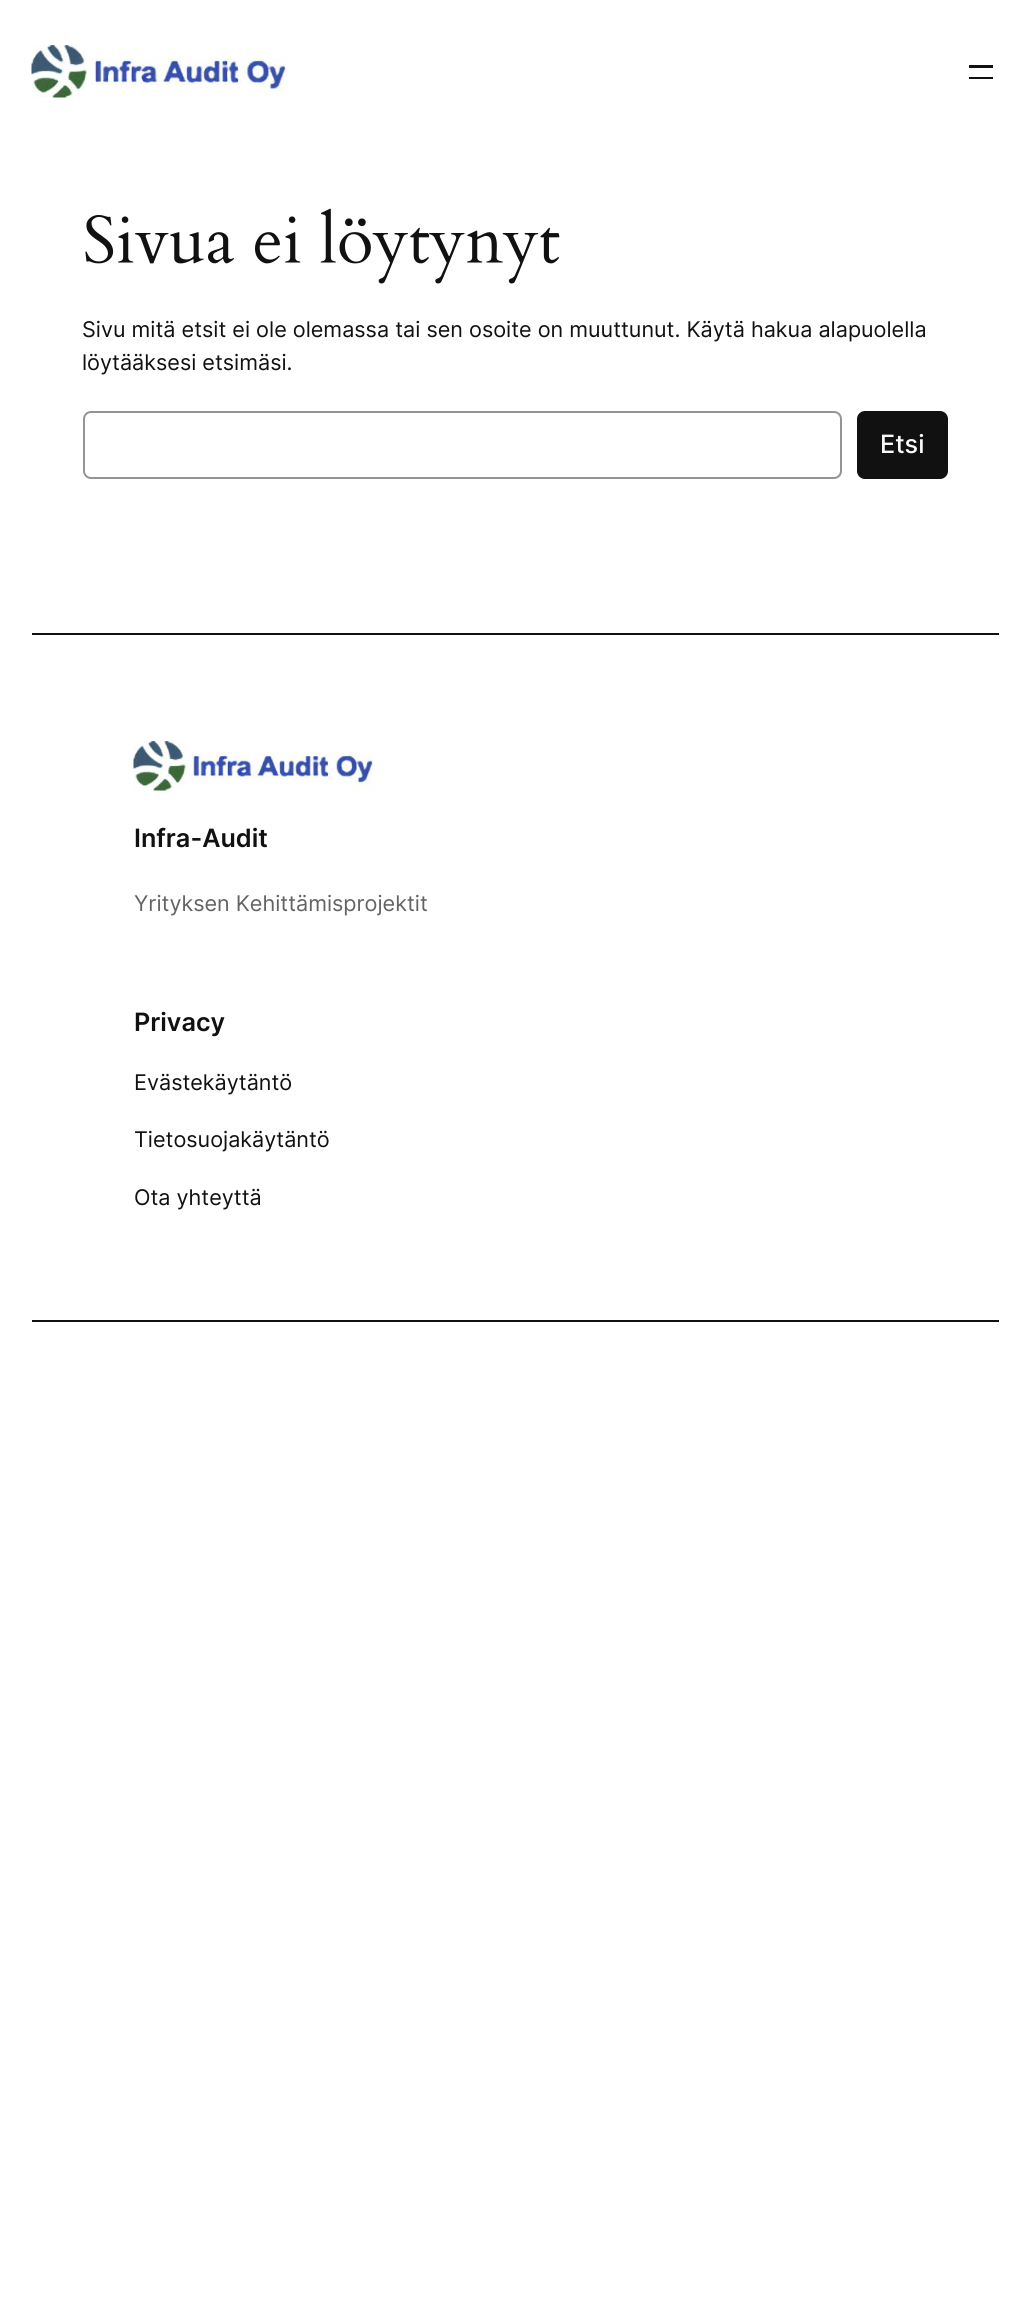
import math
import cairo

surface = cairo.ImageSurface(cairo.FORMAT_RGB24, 1030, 2315)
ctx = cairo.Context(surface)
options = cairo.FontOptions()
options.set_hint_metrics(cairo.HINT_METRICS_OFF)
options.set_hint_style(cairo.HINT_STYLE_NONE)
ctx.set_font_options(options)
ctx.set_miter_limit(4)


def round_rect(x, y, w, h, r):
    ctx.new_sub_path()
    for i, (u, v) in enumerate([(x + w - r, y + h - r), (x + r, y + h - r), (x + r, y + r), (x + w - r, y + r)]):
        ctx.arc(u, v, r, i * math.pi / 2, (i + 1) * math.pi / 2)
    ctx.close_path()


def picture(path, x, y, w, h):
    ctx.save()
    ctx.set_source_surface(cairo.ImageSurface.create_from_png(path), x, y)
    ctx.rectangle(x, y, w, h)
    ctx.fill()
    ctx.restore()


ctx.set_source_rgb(1, 1, 1)
ctx.paint()
picture("img1.png", 31, 45, 256, 53)
ctx.set_source_rgb(0.067, 0.067, 0.067)
ctx.rectangle(969, 65, 24, 3)
ctx.fill()
ctx.rectangle(969, 77, 24, 2)
ctx.fill()
picture("img2.png", 85, 208, 475, 76)
ctx.select_font_face("Inter")
ctx.set_font_size(21.6)
ctx.move_to(82, 337)
ctx.show_text("Sivu mitä etsit ei ole olemassa tai sen osoite on muuttunut. Käytä hakua alapuolella")
ctx.move_to(82, 370)
ctx.show_text("löytääksesi etsimäsi.")
round_rect(84, 412, 757, 66, 7)
ctx.set_source_rgb(0.58, 0.58, 0.58)
ctx.stroke()
ctx.set_source_rgb(0.067, 0.067, 0.067)
round_rect(857, 411, 91, 68, 8)
ctx.fill()
ctx.select_font_face("Inter Medium")
ctx.set_font_size(25.25)
ctx.set_source_rgb(0.976, 0.976, 0.976)
ctx.move_to(880, 453)
ctx.show_text("Etsi")
ctx.set_source_rgb(0.067, 0.067, 0.067)
ctx.rectangle(32, 633, 967, 2)
ctx.fill()
picture("img3.png", 133, 741, 241, 50)
ctx.select_font_face("Inter SemiBold")
ctx.move_to(134, 847)
ctx.show_text("Infra-Audit")
ctx.select_font_face("Inter")
ctx.set_font_size(21.6)
ctx.set_source_rgb(0.388, 0.388, 0.388)
ctx.move_to(134, 911)
ctx.show_text("Yrityksen Kehittämisprojektit")
ctx.select_font_face("Inter SemiBold")
ctx.set_font_size(25.25)
ctx.set_source_rgb(0.067, 0.067, 0.067)
ctx.move_to(134, 1031)
ctx.show_text("Privacy")
ctx.select_font_face("Inter")
ctx.set_font_size(21.6)
ctx.move_to(134, 1090)
ctx.show_text("Evästekäytäntö")
ctx.move_to(134, 1147)
ctx.show_text("Tietosuojakäytäntö")
ctx.move_to(134, 1205)
ctx.show_text("Ota yhteyttä")
ctx.rectangle(32, 1320, 967, 2)
ctx.fill()
surface.write_to_png("page.png")
